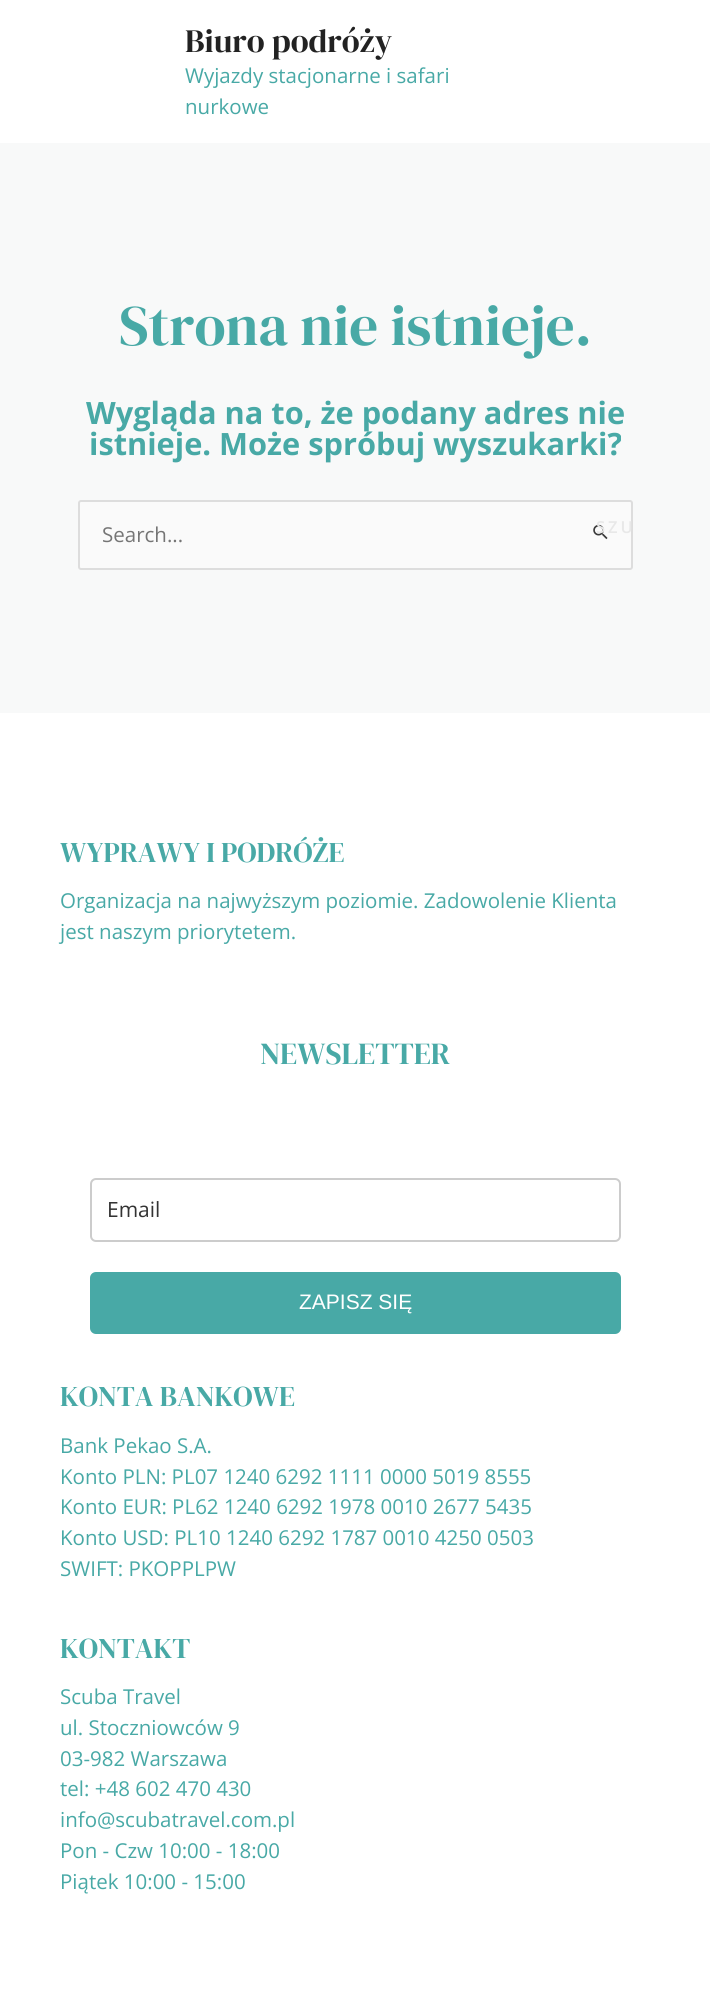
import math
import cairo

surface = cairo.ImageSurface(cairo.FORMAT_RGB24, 710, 2013)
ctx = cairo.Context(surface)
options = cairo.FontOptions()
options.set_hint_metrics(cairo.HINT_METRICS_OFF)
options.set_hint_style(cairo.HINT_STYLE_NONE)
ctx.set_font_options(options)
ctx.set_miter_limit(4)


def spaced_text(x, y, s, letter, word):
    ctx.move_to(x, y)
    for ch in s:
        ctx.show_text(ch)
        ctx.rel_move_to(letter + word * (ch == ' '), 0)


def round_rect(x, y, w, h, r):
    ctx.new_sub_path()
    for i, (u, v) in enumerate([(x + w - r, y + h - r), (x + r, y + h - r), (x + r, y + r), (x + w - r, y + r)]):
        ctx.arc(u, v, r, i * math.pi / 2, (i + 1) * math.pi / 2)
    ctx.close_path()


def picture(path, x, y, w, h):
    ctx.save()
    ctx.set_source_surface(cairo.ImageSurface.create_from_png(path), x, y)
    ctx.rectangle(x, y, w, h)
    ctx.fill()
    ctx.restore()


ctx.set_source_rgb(0.969, 0.973, 0.976)
ctx.paint()
ctx.set_source_rgb(1, 1, 1)
ctx.rectangle(0, 0, 710, 143)
ctx.fill()
ctx.select_font_face("DM Serif Display")
ctx.set_font_size(32.75)
ctx.set_source_rgb(0.133, 0.133, 0.133)
ctx.move_to(185, 52)
ctx.show_text("Biuro podróży")
ctx.select_font_face("Open Sans")
ctx.set_font_size(20.5)
ctx.set_source_rgb(0.282, 0.663, 0.651)
ctx.move_to(185, 83)
ctx.show_text("Wyjazdy stacjonarne i safari")
ctx.move_to(185, 114)
ctx.show_text("nurkowe")
ctx.select_font_face("DM Serif Display")
ctx.set_font_size(57)
ctx.move_to(119, 345)
ctx.show_text("Strona nie istnieje.")
ctx.select_font_face("Open Sans", cairo.FONT_SLANT_NORMAL, cairo.FONT_WEIGHT_BOLD)
ctx.set_font_size(30.75)
ctx.move_to(86, 424)
ctx.show_text("Wygląda na to, że podany adres nie")
ctx.move_to(89, 455)
ctx.show_text("istnieje. Może spróbuj wyszukarki?")
ctx.set_source_rgb(0.98, 0.98, 0.98)
round_rect(79, 501, 553, 68, 2)
ctx.fill_preserve()
ctx.set_source_rgb(0.867, 0.867, 0.867)
ctx.stroke()
ctx.select_font_face("Open Sans")
ctx.set_font_size(20.5)
ctx.set_source_rgb(0.459, 0.459, 0.459)
ctx.move_to(102, 542)
ctx.show_text("Search...")
picture("img1.png", 593, 524, 15, 16)
ctx.select_font_face("Open Sans SemiBold")
ctx.set_font_size(16.5)
ctx.set_source_rgb(0.91, 0.91, 0.91)
spaced_text(596, 533, "SZU", 3, 0)
ctx.set_source_rgb(1, 1, 1)
ctx.rectangle(0, 713, 710, 1300)
ctx.fill()
ctx.select_font_face("DM Serif Display")
ctx.set_font_size(28.75)
ctx.set_source_rgb(0.282, 0.663, 0.651)
ctx.move_to(60, 862)
ctx.show_text("WYPRAWY I PODRÓŻE")
ctx.select_font_face("Open Sans")
ctx.set_font_size(20.5)
ctx.move_to(60, 908)
ctx.show_text("Organizacja na najwyższym poziomie. Zadowolenie Klienta")
ctx.move_to(60, 939)
ctx.show_text("jest naszym priorytetem.")
ctx.select_font_face("DM Serif Display")
ctx.set_font_size(30.75)
ctx.move_to(260, 1064)
ctx.show_text("NEWSLETTER")
round_rect(91, 1179, 529, 62, 5)
ctx.set_source_rgb(0.8, 0.8, 0.8)
ctx.stroke()
ctx.select_font_face("Open Sans")
ctx.set_font_size(21)
ctx.set_source_rgb(0.2, 0.2, 0.2)
ctx.move_to(107, 1217)
ctx.show_text("Email")
ctx.set_source_rgb(0.282, 0.663, 0.651)
round_rect(90, 1272, 531, 62, 6)
ctx.fill()
ctx.select_font_face("Liberation Sans")
ctx.set_source_rgb(1, 1, 1)
ctx.move_to(299, 1309)
ctx.show_text("ZAPISZ SIĘ")
ctx.select_font_face("DM Serif Display")
ctx.set_font_size(28.75)
ctx.set_source_rgb(0.282, 0.663, 0.651)
ctx.move_to(60, 1406)
ctx.show_text("KONTA BANKOWE")
ctx.select_font_face("Open Sans")
ctx.set_font_size(20.5)
ctx.move_to(60, 1453)
ctx.show_text("Bank Pekao S.A.")
ctx.move_to(60, 1484)
ctx.show_text("Konto PLN: PL07 1240 6292 1111 0000 5019 8555")
ctx.move_to(60, 1514)
ctx.show_text("Konto EUR: PL62 1240 6292 1978 0010 2677 5435")
ctx.move_to(60, 1545)
ctx.show_text("Konto USD: PL10 1240 6292 1787 0010 4250 0503")
ctx.move_to(60, 1576)
ctx.show_text("SWIFT: PKOPPLPW")
ctx.select_font_face("DM Serif Display")
ctx.set_font_size(28.75)
ctx.move_to(60, 1658)
ctx.show_text("KONTAKT")
ctx.select_font_face("Open Sans")
ctx.set_font_size(20.5)
ctx.move_to(60, 1704)
ctx.show_text("Scuba Travel")
ctx.move_to(60, 1735)
ctx.show_text("ul. Stoczniowców 9")
ctx.move_to(60, 1766)
ctx.show_text("03-982 Warszawa")
ctx.move_to(60, 1796)
ctx.show_text("tel: +48 602 470 430")
ctx.move_to(60, 1827)
ctx.show_text("info@scubatravel.com.pl")
ctx.move_to(60, 1858)
ctx.show_text("Pon - Czw 10:00 - 18:00")
ctx.move_to(60, 1889)
ctx.show_text("Piątek 10:00 - 15:00")
surface.write_to_png("page.png")
